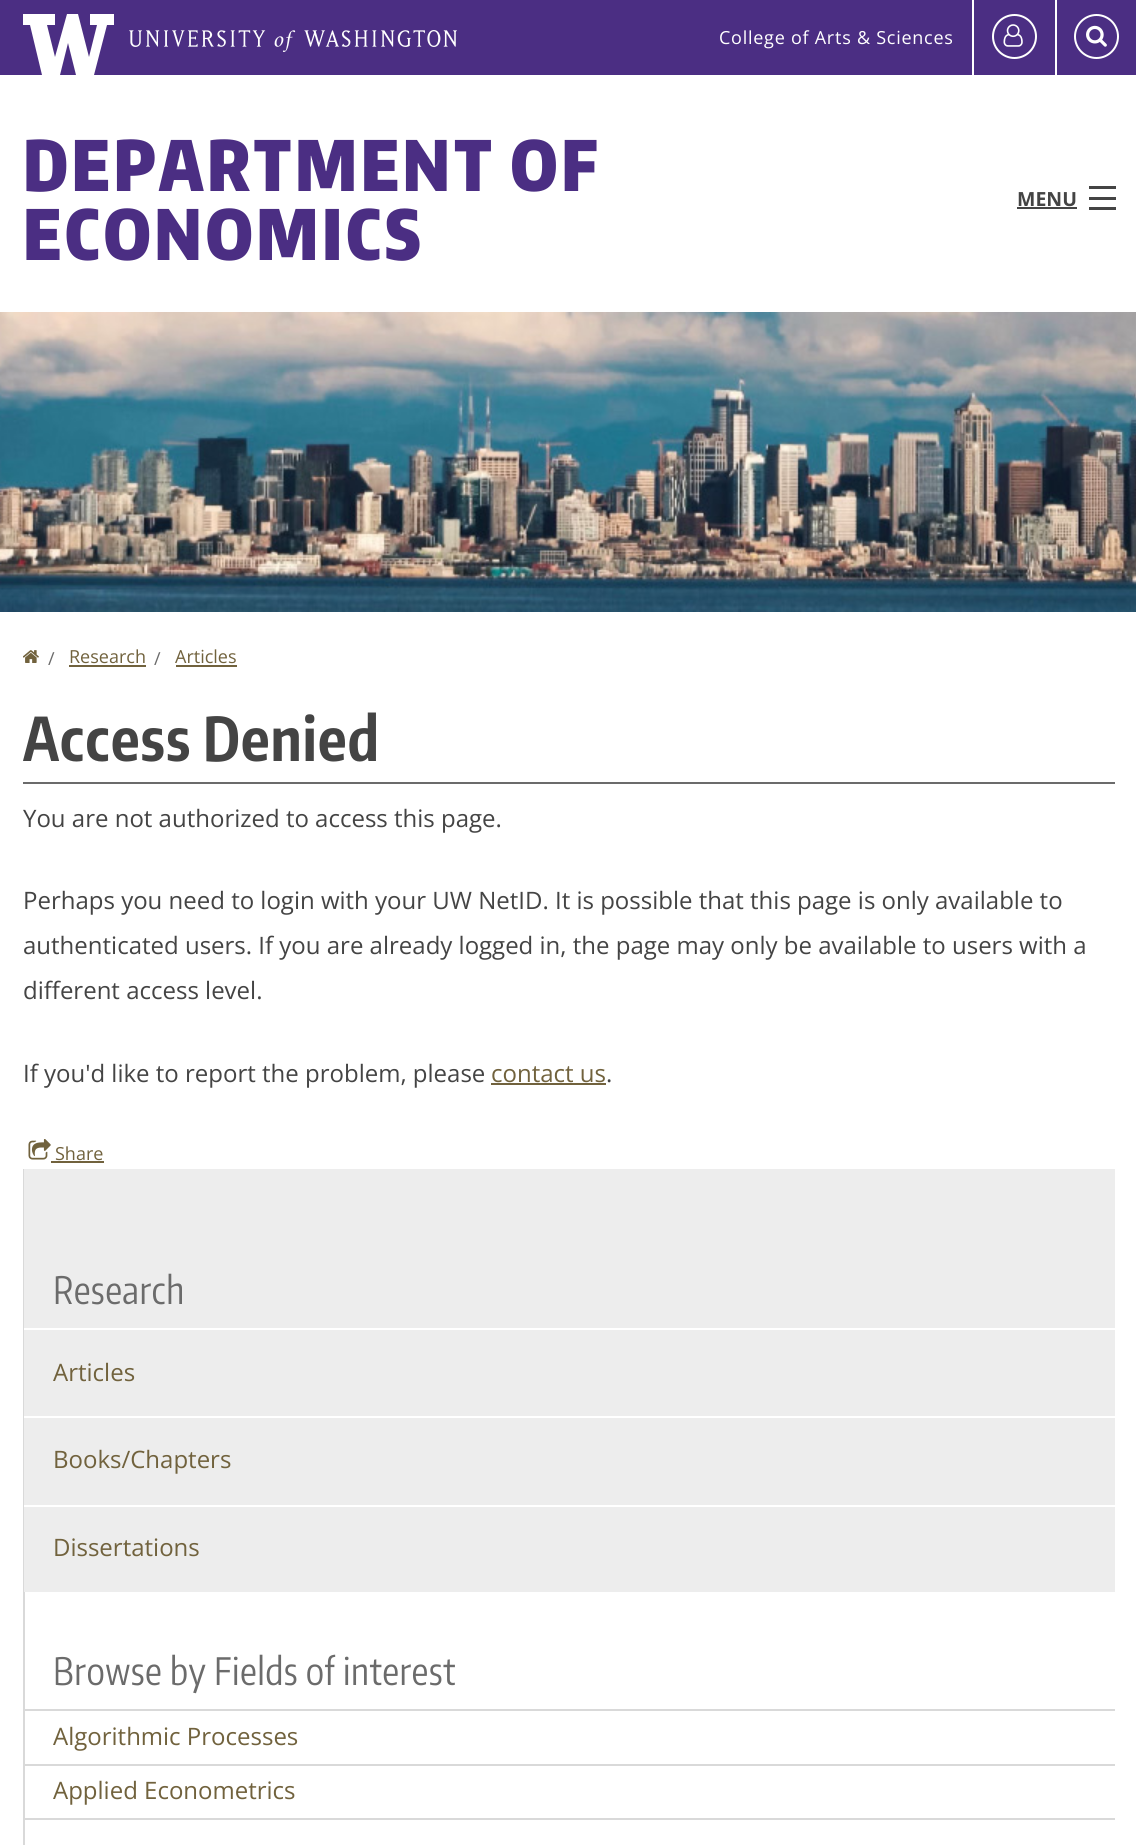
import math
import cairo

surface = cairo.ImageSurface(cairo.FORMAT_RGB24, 1136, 1845)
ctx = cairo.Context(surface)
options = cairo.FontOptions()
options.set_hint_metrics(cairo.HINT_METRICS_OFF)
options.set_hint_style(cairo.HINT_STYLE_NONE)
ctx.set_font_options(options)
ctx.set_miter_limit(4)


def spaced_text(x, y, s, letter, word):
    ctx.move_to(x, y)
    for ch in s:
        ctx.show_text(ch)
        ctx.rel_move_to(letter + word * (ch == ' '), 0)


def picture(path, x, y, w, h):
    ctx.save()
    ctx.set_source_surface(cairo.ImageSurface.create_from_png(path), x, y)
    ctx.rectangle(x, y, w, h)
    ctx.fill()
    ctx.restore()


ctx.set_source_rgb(1, 1, 1)
ctx.paint()
ctx.set_source_rgb(0.294, 0.18, 0.514)
ctx.rectangle(0, 0, 1136, 75)
ctx.fill()
ctx.save()
ctx.rectangle(23, 14, 91, 61)
ctx.clip()
ctx.set_source_rgb(1, 1, 1)
ctx.new_path()
ctx.move_to(90, 14)
ctx.line_to(90, 25)
ctx.line_to(97, 25)
ctx.line_to(89, 57)
ctx.line_to(78, 14)
ctx.line_to(67, 14)
ctx.line_to(55, 57)
ctx.line_to(47, 25)
ctx.line_to(55, 25)
ctx.line_to(55, 14)
ctx.line_to(22, 14)
ctx.line_to(22, 25)
ctx.line_to(30, 25)
ctx.line_to(42, 75)
ctx.line_to(60, 75)
ctx.line_to(68, 43)
ctx.line_to(76, 75)
ctx.line_to(94, 75)
ctx.line_to(107, 25)
ctx.line_to(114, 25)
ctx.line_to(114, 14)
ctx.close_path()
ctx.fill()
ctx.restore()
picture("img1.png", 129, 30, 328, 22)
ctx.select_font_face("Open Sans")
ctx.set_font_size(18)
ctx.set_source_rgb(1, 1, 1)
spaced_text(719, 44, "College of Arts & Sciences", 0.75, 0)
ctx.rectangle(972, 0, 2, 75)
ctx.fill()
ctx.arc(1014.5, 36.5, 21.5, 0, 2 * math.pi)
ctx.stroke()
picture("img2.png", 1003, 24, 20, 23)
ctx.rectangle(1055, 0, 2, 75)
ctx.fill()
ctx.arc(1096.5, 36.5, 21.5, 0, 2 * math.pi)
ctx.stroke()
picture("img3.png", 1086, 25, 21, 22)
ctx.select_font_face("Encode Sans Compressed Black")
ctx.set_font_size(69)
ctx.set_source_rgb(0.294, 0.18, 0.514)
spaced_text(23, 191, "DEPARTMENT OF", 3.5, 0)
spaced_text(23, 260, "ECONOMICS", 3.5, 0)
ctx.select_font_face("Open Sans", cairo.FONT_SLANT_NORMAL, cairo.FONT_WEIGHT_BOLD)
ctx.set_font_size(19.5)
ctx.set_source_rgb(0.267, 0.267, 0.267)
ctx.move_to(1017, 206)
ctx.show_text("MENU")
ctx.rectangle(1017, 207, 60, 2)
ctx.fill()
ctx.rectangle(1089, 207, 27, 3)
ctx.fill()
ctx.rectangle(1089, 197, 27, 3)
ctx.fill()
ctx.rectangle(1089, 186, 27, 3)
ctx.fill()
picture("img4.png", 0, 312, 1136, 300)
picture("img5.png", 23, 650, 16, 13)
ctx.select_font_face("Open Sans")
ctx.set_font_size(18)
ctx.set_source_rgb(0.42, 0.42, 0.42)
ctx.move_to(48, 665)
ctx.show_text("/")
ctx.set_source_rgb(0.443, 0.384, 0.239)
ctx.move_to(69, 663)
ctx.show_text("Research")
ctx.rectangle(69, 665, 77, 2)
ctx.fill()
ctx.set_source_rgb(0.42, 0.42, 0.42)
ctx.move_to(154, 665)
ctx.show_text("/")
ctx.set_source_rgb(0.443, 0.384, 0.239)
ctx.move_to(175, 663)
ctx.show_text("Articles")
ctx.rectangle(176, 665, 61, 2)
ctx.fill()
ctx.select_font_face("Encode Sans Compressed", cairo.FONT_SLANT_NORMAL, cairo.FONT_WEIGHT_BOLD)
ctx.set_font_size(60)
ctx.set_source_rgb(0.267, 0.267, 0.267)
spaced_text(23, 761, "Access Denied", 0.75, 0)
ctx.set_source_rgb(0.42, 0.42, 0.42)
ctx.rectangle(23, 782, 1092, 2)
ctx.fill()
ctx.select_font_face("Open Sans")
ctx.set_font_size(24)
ctx.set_source_rgb(0.267, 0.267, 0.267)
ctx.move_to(23, 827)
ctx.show_text("You are not authorized to access this page.")
ctx.move_to(23, 909)
ctx.show_text("Perhaps you need to login with your UW NetID. It is possible that this page is only available to")
ctx.move_to(23, 954)
ctx.show_text("authenticated users. If you are already logged in, the page may only be available to users with a")
ctx.move_to(23, 999)
ctx.show_text("different access level.")
ctx.move_to(23, 1082)
ctx.show_text("If you'd like to report the problem, please")
ctx.set_source_rgb(0.443, 0.384, 0.239)
ctx.move_to(491, 1082)
ctx.show_text("contact us")
ctx.rectangle(491, 1083, 115, 2)
ctx.fill()
ctx.set_source_rgb(0.267, 0.267, 0.267)
ctx.move_to(606, 1082)
ctx.show_text(".")
picture("img6.png", 28, 1139, 23, 21)
ctx.set_font_size(18)
ctx.set_source_rgb(0.443, 0.384, 0.239)
ctx.move_to(55, 1160)
ctx.show_text("Share")
ctx.rectangle(51, 1161, 53, 2)
ctx.fill()
ctx.set_source_rgb(0.851, 0.851, 0.851)
ctx.rectangle(23, 1169, 2, 676)
ctx.fill()
ctx.set_source_rgb(0.929, 0.929, 0.929)
ctx.rectangle(24, 1169, 1091, 423)
ctx.fill()
ctx.select_font_face("Encode Sans Compressed")
ctx.set_font_size(37.5)
ctx.set_source_rgb(0.42, 0.42, 0.42)
spaced_text(53, 1304, "Research", 0.45, 0)
ctx.set_source_rgb(1, 1, 1)
ctx.rectangle(24, 1328, 1091, 2)
ctx.fill()
ctx.select_font_face("Open Sans")
ctx.set_font_size(24)
ctx.set_source_rgb(0.443, 0.384, 0.239)
ctx.move_to(53, 1381)
ctx.show_text("Articles")
ctx.set_source_rgb(1, 1, 1)
ctx.rectangle(24, 1416, 1091, 2)
ctx.fill()
ctx.set_source_rgb(0.443, 0.384, 0.239)
ctx.move_to(53, 1468)
ctx.show_text("Books/Chapters")
ctx.set_source_rgb(1, 1, 1)
ctx.rectangle(24, 1505, 1091, 2)
ctx.fill()
ctx.set_source_rgb(0.443, 0.384, 0.239)
ctx.move_to(53, 1556)
ctx.show_text("Dissertations")
ctx.select_font_face("Encode Sans Compressed")
ctx.set_font_size(37.5)
ctx.set_source_rgb(0.42, 0.42, 0.42)
spaced_text(53, 1685, "Browse by Fields of interest", 0.45, 0)
ctx.set_source_rgb(0.851, 0.851, 0.851)
ctx.rectangle(24, 1709, 1091, 2)
ctx.fill()
ctx.select_font_face("Open Sans")
ctx.set_font_size(24)
ctx.set_source_rgb(0.443, 0.384, 0.239)
ctx.move_to(53, 1745)
ctx.show_text("Algorithmic Processes")
ctx.set_source_rgb(0.851, 0.851, 0.851)
ctx.rectangle(24, 1764, 1091, 2)
ctx.fill()
ctx.set_source_rgb(0.443, 0.384, 0.239)
ctx.move_to(53, 1799)
ctx.show_text("Applied Econometrics")
ctx.set_source_rgb(0.851, 0.851, 0.851)
ctx.rectangle(24, 1818, 1091, 2)
ctx.fill()
surface.write_to_png("page.png")
